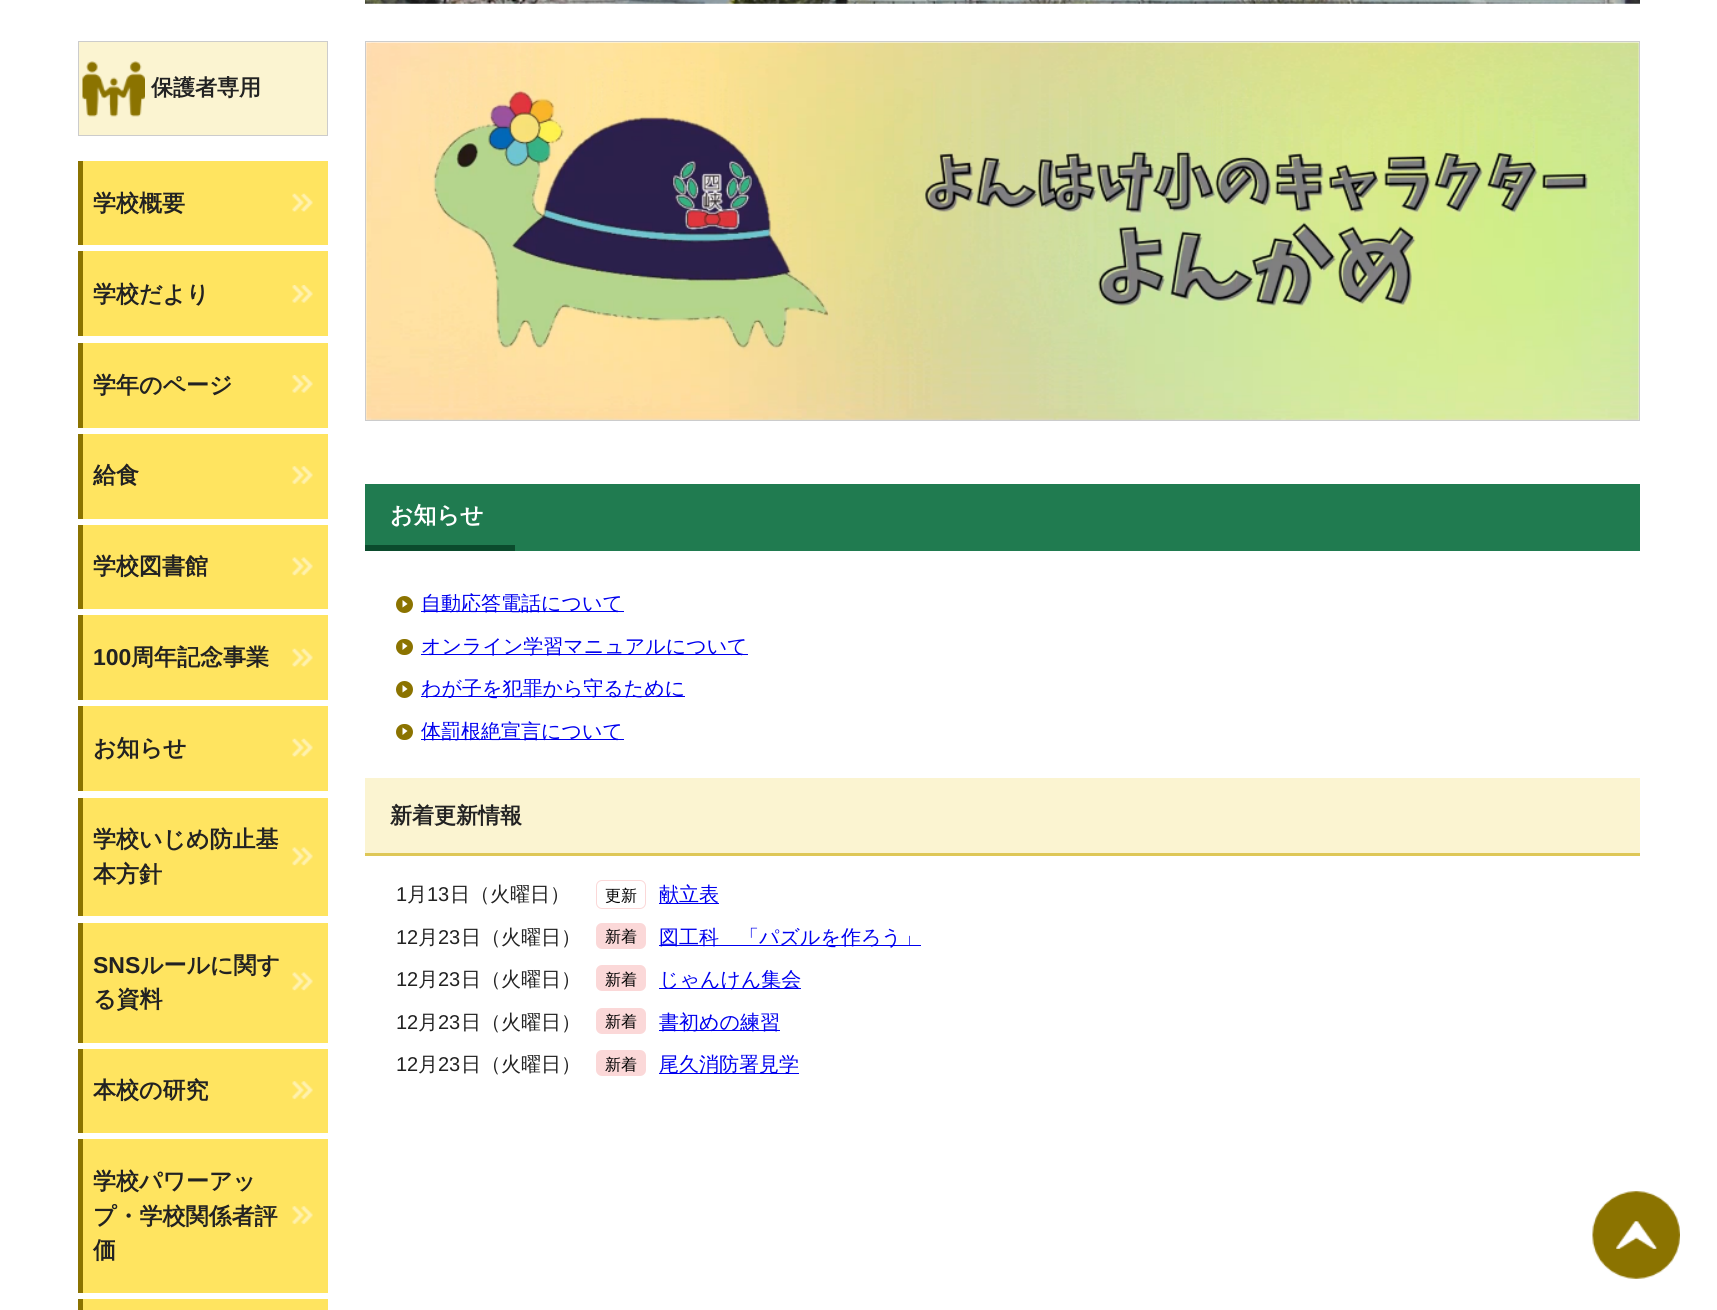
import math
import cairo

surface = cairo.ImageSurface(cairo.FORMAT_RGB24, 1717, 1310)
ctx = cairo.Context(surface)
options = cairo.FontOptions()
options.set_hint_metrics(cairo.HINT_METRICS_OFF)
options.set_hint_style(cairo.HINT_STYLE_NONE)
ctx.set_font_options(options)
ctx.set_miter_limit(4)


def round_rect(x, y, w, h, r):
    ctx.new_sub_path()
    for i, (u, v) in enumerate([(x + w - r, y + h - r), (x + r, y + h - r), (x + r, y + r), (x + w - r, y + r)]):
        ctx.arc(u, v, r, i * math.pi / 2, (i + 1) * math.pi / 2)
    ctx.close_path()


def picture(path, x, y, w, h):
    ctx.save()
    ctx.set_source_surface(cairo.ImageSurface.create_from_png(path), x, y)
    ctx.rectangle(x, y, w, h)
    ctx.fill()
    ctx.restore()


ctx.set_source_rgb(1, 1, 1)
ctx.paint()
picture("img1.png", 365, 0, 1275, 4)
ctx.set_source_rgb(0.984, 0.957, 0.82)
ctx.rectangle(78.5, 41.5, 249, 94)
ctx.fill_preserve()
ctx.set_source_rgb(0.8, 0.8, 0.8)
ctx.set_line_width(1)
ctx.stroke()
picture("img2.png", 82, 61, 63, 56)
ctx.select_font_face("WenQuanYi Zen Hei", cairo.FONT_SLANT_NORMAL, cairo.FONT_WEIGHT_BOLD)
ctx.set_font_size(22)
ctx.set_source_rgb(0.133, 0.133, 0.133)
ctx.move_to(151, 95)
ctx.show_text("保護者専用")
ctx.set_source_rgb(1, 0.894, 0.376)
ctx.rectangle(83, 161, 245, 84)
ctx.fill()
picture("img3.png", 292, 193, 21, 19)
ctx.set_source_rgb(0.545, 0.451, 0)
ctx.rectangle(78, 161, 5, 84)
ctx.fill()
ctx.set_font_size(23)
ctx.set_source_rgb(0.133, 0.133, 0.133)
ctx.move_to(93, 211)
ctx.show_text("学校概要")
ctx.set_source_rgb(1, 0.894, 0.376)
ctx.rectangle(83, 251, 245, 85)
ctx.fill()
picture("img4.png", 292, 285, 21, 18)
ctx.set_source_rgb(0.545, 0.451, 0)
ctx.rectangle(78, 251, 5, 85)
ctx.fill()
ctx.set_source_rgb(0.133, 0.133, 0.133)
ctx.move_to(93, 302)
ctx.show_text("学校だより")
ctx.set_source_rgb(1, 0.894, 0.376)
ctx.rectangle(83, 343, 245, 85)
ctx.fill()
picture("img4.png", 292, 375, 21, 18)
ctx.set_source_rgb(0.545, 0.451, 0)
ctx.rectangle(78, 343, 5, 85)
ctx.fill()
ctx.set_source_rgb(0.133, 0.133, 0.133)
ctx.move_to(93, 393)
ctx.show_text("学年のページ")
ctx.set_source_rgb(1, 0.894, 0.376)
ctx.rectangle(83, 434, 245, 85)
ctx.fill()
picture("img5.png", 292, 466, 21, 19)
ctx.set_source_rgb(0.545, 0.451, 0)
ctx.rectangle(78, 434, 5, 85)
ctx.fill()
ctx.set_source_rgb(0.133, 0.133, 0.133)
ctx.move_to(93, 483)
ctx.show_text("給食")
ctx.set_source_rgb(1, 0.894, 0.376)
ctx.rectangle(83, 525, 245, 84)
ctx.fill()
picture("img6.png", 292, 557, 21, 19)
ctx.set_source_rgb(0.545, 0.451, 0)
ctx.rectangle(78, 525, 5, 84)
ctx.fill()
ctx.set_source_rgb(0.133, 0.133, 0.133)
ctx.move_to(93, 574)
ctx.show_text("学校図書館")
ctx.set_source_rgb(1, 0.894, 0.376)
ctx.rectangle(83, 615, 245, 85)
ctx.fill()
picture("img3.png", 292, 648, 21, 19)
ctx.set_source_rgb(0.545, 0.451, 0)
ctx.rectangle(78, 615, 5, 85)
ctx.fill()
ctx.select_font_face("Liberation Sans", cairo.FONT_SLANT_NORMAL, cairo.FONT_WEIGHT_BOLD)
ctx.set_source_rgb(0.133, 0.133, 0.133)
ctx.move_to(93, 665)
ctx.show_text("100")
ctx.select_font_face("WenQuanYi Zen Hei", cairo.FONT_SLANT_NORMAL, cairo.FONT_WEIGHT_BOLD)
ctx.move_to(131, 665)
ctx.show_text("周年記念事業")
ctx.set_source_rgb(1, 0.894, 0.376)
ctx.rectangle(83, 706, 245, 85)
ctx.fill()
picture("img3.png", 292, 738, 21, 19)
ctx.set_source_rgb(0.545, 0.451, 0)
ctx.rectangle(78, 706, 5, 85)
ctx.fill()
ctx.set_source_rgb(0.133, 0.133, 0.133)
ctx.move_to(93, 756)
ctx.show_text("お知らせ")
ctx.set_source_rgb(1, 0.894, 0.376)
ctx.rectangle(83, 798, 245, 118)
ctx.fill()
picture("img6.png", 292, 847, 21, 19)
ctx.set_source_rgb(0.545, 0.451, 0)
ctx.rectangle(78, 798, 5, 118)
ctx.fill()
ctx.set_source_rgb(0.133, 0.133, 0.133)
ctx.move_to(93, 847)
ctx.show_text("学校いじめ防止基")
ctx.move_to(93, 882)
ctx.show_text("本方針")
ctx.set_source_rgb(1, 0.894, 0.376)
ctx.rectangle(83, 923, 245, 120)
ctx.fill()
picture("img6.png", 292, 972, 21, 19)
ctx.set_source_rgb(0.545, 0.451, 0)
ctx.rectangle(78, 923, 5, 120)
ctx.fill()
ctx.select_font_face("Liberation Sans", cairo.FONT_SLANT_NORMAL, cairo.FONT_WEIGHT_BOLD)
ctx.set_source_rgb(0.133, 0.133, 0.133)
ctx.move_to(93, 973)
ctx.show_text("SNS")
ctx.select_font_face("WenQuanYi Zen Hei", cairo.FONT_SLANT_NORMAL, cairo.FONT_WEIGHT_BOLD)
ctx.move_to(140, 973)
ctx.show_text("ルールに関す")
ctx.move_to(93, 1007)
ctx.show_text("る資料")
ctx.set_source_rgb(1, 0.894, 0.376)
ctx.rectangle(83, 1049, 245, 84)
ctx.fill()
picture("img5.png", 292, 1081, 21, 19)
ctx.set_source_rgb(0.545, 0.451, 0)
ctx.rectangle(78, 1049, 5, 84)
ctx.fill()
ctx.set_source_rgb(0.133, 0.133, 0.133)
ctx.move_to(93, 1098)
ctx.show_text("本校の研究")
ctx.set_source_rgb(1, 0.894, 0.376)
ctx.rectangle(83, 1139, 245, 154)
ctx.fill()
picture("img5.png", 292, 1206, 21, 19)
ctx.set_source_rgb(0.545, 0.451, 0)
ctx.rectangle(78, 1139, 5, 154)
ctx.fill()
ctx.set_source_rgb(0.133, 0.133, 0.133)
ctx.move_to(93, 1189)
ctx.show_text("学校パワーアッ")
ctx.move_to(93, 1224)
ctx.show_text("プ・学校関係者評")
ctx.move_to(93, 1258)
ctx.show_text("価")
ctx.set_source_rgb(1, 0.894, 0.376)
ctx.rectangle(83, 1299, 245, 11)
ctx.fill()
ctx.set_source_rgb(0.545, 0.451, 0)
ctx.rectangle(78, 1299, 5, 11)
ctx.fill()
ctx.rectangle(365.5, 41.5, 1274, 379)
ctx.set_source_rgb(0.8, 0.8, 0.8)
ctx.stroke()
picture("img7.png", 366, 42, 1273, 378)
ctx.set_source_rgb(0.125, 0.482, 0.314)
ctx.rectangle(365, 484, 1275, 67)
ctx.fill()
ctx.set_source_rgb(1, 1, 1)
ctx.move_to(390, 523)
ctx.show_text("お知らせ")
ctx.set_source_rgb(0.043, 0.294, 0.176)
ctx.rectangle(365, 545, 150, 6)
ctx.fill()
ctx.set_source_rgb(0.545, 0.451, 0)
ctx.arc(404.5, 604.5, 8.5, 0, 2 * math.pi)
ctx.fill()
ctx.set_source_rgb(0, 0, 0.933)
ctx.rectangle(421, 611, 203, 1)
ctx.fill()
ctx.select_font_face("WenQuanYi Zen Hei Medium")
ctx.set_font_size(20)
ctx.move_to(421, 610)
ctx.show_text("自動応答電話について")
ctx.set_source_rgb(1, 1, 1)
ctx.new_path()
ctx.move_to(402.5, 607.5)
ctx.line_to(402.5, 600)
ctx.line_to(407.5, 604)
ctx.close_path()
ctx.fill()
ctx.set_source_rgb(0.545, 0.451, 0)
round_rect(396, 639, 17, 16, 8)
ctx.fill()
ctx.set_source_rgb(0, 0, 0.933)
ctx.rectangle(421, 654, 327, 1)
ctx.fill()
ctx.move_to(421, 653)
ctx.show_text("オンライン学習マニュアルについて")
ctx.set_source_rgb(1, 1, 1)
ctx.new_path()
ctx.move_to(402.5, 650)
ctx.line_to(402.5, 642.5)
ctx.line_to(407.5, 646)
ctx.close_path()
ctx.fill()
ctx.set_source_rgb(0.545, 0.451, 0)
ctx.arc(404.5, 689.5, 8.5, 0, 2 * math.pi)
ctx.fill()
ctx.set_source_rgb(0, 0, 0.933)
ctx.rectangle(421, 696, 264, 1)
ctx.fill()
ctx.move_to(421, 695)
ctx.show_text("わが子を犯罪から守るために")
ctx.set_source_rgb(1, 1, 1)
ctx.new_path()
ctx.move_to(402.5, 692.5)
ctx.line_to(402.5, 685)
ctx.line_to(407.5, 689)
ctx.close_path()
ctx.fill()
ctx.set_source_rgb(0.545, 0.451, 0)
round_rect(396, 724, 17, 16, 8)
ctx.fill()
ctx.set_source_rgb(0, 0, 0.933)
ctx.rectangle(421, 739, 203, 1)
ctx.fill()
ctx.move_to(421, 738)
ctx.show_text("体罰根絶宣言について")
ctx.set_source_rgb(1, 1, 1)
ctx.new_path()
ctx.move_to(402.5, 735)
ctx.line_to(402.5, 727.5)
ctx.line_to(407.5, 731)
ctx.close_path()
ctx.fill()
ctx.set_source_rgb(0.984, 0.957, 0.82)
ctx.rectangle(365, 778, 1275, 75)
ctx.fill()
ctx.set_source_rgb(0.871, 0.78, 0.341)
ctx.rectangle(365, 853, 1275, 3)
ctx.fill()
ctx.select_font_face("WenQuanYi Zen Hei", cairo.FONT_SLANT_NORMAL, cairo.FONT_WEIGHT_BOLD)
ctx.set_font_size(22)
ctx.set_source_rgb(0.133, 0.133, 0.133)
ctx.move_to(390, 823)
ctx.show_text("新着更新情報")
ctx.select_font_face("Liberation Sans")
ctx.set_font_size(20)
ctx.move_to(396, 901)
ctx.show_text("1")
ctx.select_font_face("WenQuanYi Zen Hei Medium")
ctx.move_to(407, 901)
ctx.show_text("月")
ctx.select_font_face("Liberation Sans")
ctx.move_to(427, 901)
ctx.show_text("13")
ctx.select_font_face("WenQuanYi Zen Hei Medium")
ctx.move_to(450, 901)
ctx.show_text("日（火曜日）")
round_rect(596.5, 880.5, 49, 28, 5.5)
ctx.set_source_rgb(0.984, 0.847, 0.847)
ctx.stroke()
ctx.set_font_size(16)
ctx.set_source_rgb(0, 0, 0)
ctx.move_to(605, 901)
ctx.show_text("更新")
ctx.set_source_rgb(0, 0, 0.933)
ctx.rectangle(659, 903, 60, 1)
ctx.fill()
ctx.set_font_size(20)
ctx.move_to(659, 901)
ctx.show_text("献立表")
ctx.select_font_face("Liberation Sans")
ctx.set_source_rgb(0.133, 0.133, 0.133)
ctx.move_to(396, 944)
ctx.show_text("12")
ctx.select_font_face("WenQuanYi Zen Hei Medium")
ctx.move_to(418, 944)
ctx.show_text("月")
ctx.select_font_face("Liberation Sans")
ctx.move_to(438, 944)
ctx.show_text("23")
ctx.select_font_face("WenQuanYi Zen Hei Medium")
ctx.move_to(461, 944)
ctx.show_text("日（火曜日）")
ctx.set_source_rgb(0.984, 0.847, 0.847)
round_rect(596, 923, 50, 26, 6)
ctx.fill()
ctx.set_font_size(16)
ctx.set_source_rgb(0, 0, 0)
ctx.move_to(605, 942)
ctx.show_text("新着")
ctx.set_source_rgb(0, 0, 0.933)
ctx.rectangle(659, 945, 262, 1)
ctx.fill()
ctx.set_font_size(20)
ctx.move_to(659, 944)
ctx.show_text("図工科　「パズルを作ろう」")
ctx.select_font_face("Liberation Sans")
ctx.set_source_rgb(0.133, 0.133, 0.133)
ctx.move_to(396, 986)
ctx.show_text("12")
ctx.select_font_face("WenQuanYi Zen Hei Medium")
ctx.move_to(418, 986)
ctx.show_text("月")
ctx.select_font_face("Liberation Sans")
ctx.move_to(438, 986)
ctx.show_text("23")
ctx.select_font_face("WenQuanYi Zen Hei Medium")
ctx.move_to(461, 986)
ctx.show_text("日（火曜日）")
ctx.set_source_rgb(0.984, 0.847, 0.847)
round_rect(596, 965, 50, 26, 6)
ctx.fill()
ctx.set_font_size(16)
ctx.set_source_rgb(0, 0, 0)
ctx.move_to(605, 985)
ctx.show_text("新着")
ctx.set_source_rgb(0, 0, 0.933)
ctx.rectangle(659, 988, 142, 1)
ctx.fill()
ctx.set_font_size(20)
ctx.move_to(659, 986)
ctx.show_text("じゃんけん集会")
ctx.select_font_face("Liberation Sans")
ctx.set_source_rgb(0.133, 0.133, 0.133)
ctx.move_to(396, 1029)
ctx.show_text("12")
ctx.select_font_face("WenQuanYi Zen Hei Medium")
ctx.move_to(418, 1029)
ctx.show_text("月")
ctx.select_font_face("Liberation Sans")
ctx.move_to(438, 1029)
ctx.show_text("23")
ctx.select_font_face("WenQuanYi Zen Hei Medium")
ctx.move_to(461, 1029)
ctx.show_text("日（火曜日）")
ctx.set_source_rgb(0.984, 0.847, 0.847)
round_rect(596, 1008, 50, 26, 6)
ctx.fill()
ctx.set_font_size(16)
ctx.set_source_rgb(0, 0, 0)
ctx.move_to(605, 1027)
ctx.show_text("新着")
ctx.set_source_rgb(0, 0, 0.933)
ctx.rectangle(659, 1030, 121, 1)
ctx.fill()
ctx.set_font_size(20)
ctx.move_to(659, 1029)
ctx.show_text("書初めの練習")
ctx.select_font_face("Liberation Sans")
ctx.set_source_rgb(0.133, 0.133, 0.133)
ctx.move_to(396, 1071)
ctx.show_text("12")
ctx.select_font_face("WenQuanYi Zen Hei Medium")
ctx.move_to(418, 1071)
ctx.show_text("月")
ctx.select_font_face("Liberation Sans")
ctx.move_to(438, 1071)
ctx.show_text("23")
ctx.select_font_face("WenQuanYi Zen Hei Medium")
ctx.move_to(461, 1071)
ctx.show_text("日（火曜日）")
ctx.set_source_rgb(0.984, 0.847, 0.847)
round_rect(596, 1050, 50, 26, 6)
ctx.fill()
ctx.set_font_size(16)
ctx.set_source_rgb(0, 0, 0)
ctx.move_to(605, 1070)
ctx.show_text("新着")
ctx.set_source_rgb(0, 0, 0.933)
ctx.rectangle(659, 1073, 140, 1)
ctx.fill()
ctx.set_font_size(20)
ctx.move_to(659, 1071)
ctx.show_text("尾久消防署見学")
picture("img8.png", 1592, 1191, 88, 88)
surface.write_to_png("page.png")
